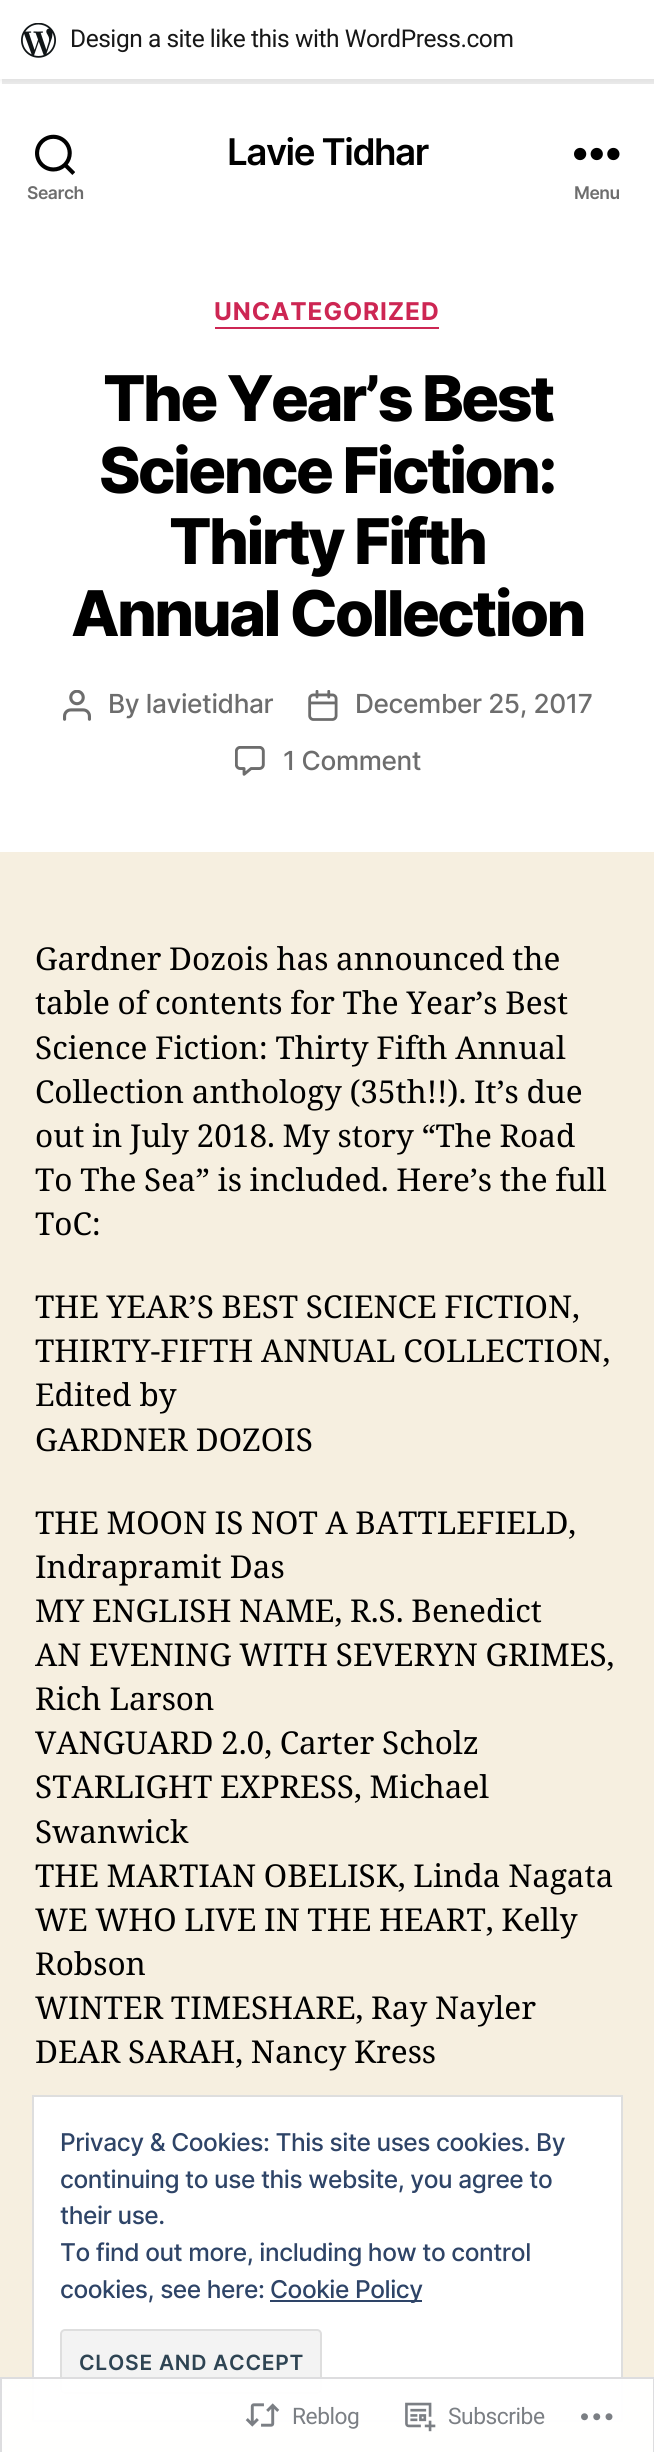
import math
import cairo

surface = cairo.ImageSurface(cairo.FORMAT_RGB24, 654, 2452)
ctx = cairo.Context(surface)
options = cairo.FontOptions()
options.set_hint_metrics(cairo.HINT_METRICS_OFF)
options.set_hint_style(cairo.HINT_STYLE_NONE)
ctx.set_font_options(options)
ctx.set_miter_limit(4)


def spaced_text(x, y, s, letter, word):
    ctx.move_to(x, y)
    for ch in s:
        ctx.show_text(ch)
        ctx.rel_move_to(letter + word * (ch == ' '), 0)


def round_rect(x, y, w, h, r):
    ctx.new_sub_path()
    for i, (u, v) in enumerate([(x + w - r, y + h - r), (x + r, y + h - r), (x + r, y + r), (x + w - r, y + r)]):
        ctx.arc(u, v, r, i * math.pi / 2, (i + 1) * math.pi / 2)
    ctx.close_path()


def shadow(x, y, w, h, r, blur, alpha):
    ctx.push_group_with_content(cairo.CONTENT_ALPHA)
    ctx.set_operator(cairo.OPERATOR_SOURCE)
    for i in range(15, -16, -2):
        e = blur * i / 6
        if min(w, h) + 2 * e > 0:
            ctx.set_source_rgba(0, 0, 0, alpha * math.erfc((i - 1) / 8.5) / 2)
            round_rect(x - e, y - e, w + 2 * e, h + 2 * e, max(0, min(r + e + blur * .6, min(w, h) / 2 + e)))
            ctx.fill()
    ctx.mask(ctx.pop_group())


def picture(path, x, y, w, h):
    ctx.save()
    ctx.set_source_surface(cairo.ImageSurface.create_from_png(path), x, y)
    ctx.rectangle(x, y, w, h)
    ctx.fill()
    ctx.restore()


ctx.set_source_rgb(0.961, 0.937, 0.878)
ctx.paint()
ctx.set_source_rgb(1, 1, 1)
ctx.rectangle(0, 79, 654, 773)
ctx.fill()
ctx.set_source_rgb(0, 0, 0)
shadow(0, 2, 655, 79, 0, 2, 0.05)
ctx.set_source_rgba(0, 0, 0, 0.08)
ctx.new_path()
ctx.move_to(2, 79)
ctx.line_to(2, 84)
ctx.line_to(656, 84)
ctx.line_to(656, 5)
ctx.line_to(654, 5)
ctx.line_to(654, 79)
ctx.close_path()
ctx.fill()
ctx.set_source_rgb(1, 1, 1)
ctx.rectangle(0, 0, 654, 79)
ctx.fill()
picture("img1.png", 21, 23, 35, 35)
ctx.select_font_face("Roboto")
ctx.set_font_size(24.5)
ctx.set_source_rgb(0.09, 0.09, 0.09)
spaced_text(70, 47, "Design a site like this with WordPress.com", -0.45, 0)
ctx.select_font_face("Inter SemiBold")
ctx.set_font_size(36.75)
ctx.set_source_rgb(0, 0, 0)
spaced_text(227, 165, "Lavie Tidhar", -1.5, 0)
picture("img2.png", 35, 134, 40, 41)
ctx.set_font_size(17.5)
ctx.set_source_rgb(0.427, 0.427, 0.427)
spaced_text(27, 199, "Search", -0.45, 0)
picture("img3.png", 574, 147, 46, 14)
spaced_text(574, 199, "Menu", -0.45, 0)
ctx.set_source_rgb(0.804, 0.149, 0.325)
ctx.rectangle(215, 327, 224, 2)
ctx.fill()
ctx.select_font_face("Inter", cairo.FONT_SLANT_NORMAL, cairo.FONT_WEIGHT_BOLD)
ctx.set_font_size(24.5)
spaced_text(214, 320, "UNCATEGORIZED", 0.9, 0)
ctx.select_font_face("Inter ExtraBold")
ctx.set_font_size(63)
ctx.set_source_rgb(0, 0, 0)
spaced_text(103, 421, "The Year’s Best", -2.6, 0)
spaced_text(99, 493, "Science Fiction:", -2.6, 0)
spaced_text(169, 564, "Thirty Fifth", -2.6, 0)
spaced_text(71, 636, "Annual Collection", -2.6, 0)
picture("img4.png", 63, 690, 28, 31)
ctx.select_font_face("Inter Medium")
ctx.set_font_size(26.25)
ctx.set_source_rgb(0.427, 0.427, 0.427)
spaced_text(108, 713, "By lavietidhar", -0.4, 0)
picture("img5.png", 308, 690, 30, 31)
spaced_text(355, 713, "December 25, 2017", -0.4, 0)
picture("img6.png", 235, 746, 30, 30)
spaced_text(283, 770, "1 Comment", -0.4, 0)
ctx.select_font_face("Noto Serif")
ctx.set_font_size(31.5)
ctx.set_source_rgb(0, 0, 0)
spaced_text(35, 970, "Gardner Dozois has announced the", 0, -0.5)
spaced_text(35, 1014, "table of contents for The Year’s Best", 0, -0.5)
spaced_text(35, 1059, "Science Fiction: Thirty Fifth Annual", 0, -0.5)
spaced_text(35, 1103, "Collection anthology (35th!!). It’s due", 0, -0.5)
spaced_text(35, 1147, "out in July 2018. My story “The Road", 0, -0.5)
spaced_text(35, 1191, "To The Sea” is included. Here’s the full", 0, -0.5)
ctx.move_to(35, 1235)
ctx.show_text("ToC:")
spaced_text(35, 1318, "THE YEAR’S BEST SCIENCE FICTION,", 0, -0.5)
spaced_text(35, 1362, "THIRTY-FIFTH ANNUAL COLLECTION,", 0, -0.5)
ctx.move_to(35, 1406)
ctx.show_text("Edited by")
ctx.move_to(35, 1451)
ctx.show_text("GARDNER DOZOIS")
spaced_text(35, 1534, "THE MOON IS NOT A BATTLEFIELD,", 0, -0.5)
ctx.move_to(35, 1578)
ctx.show_text("Indrapramit Das")
spaced_text(35, 1622, "MY ENGLISH NAME, R.S. Benedict", 0, -0.5)
spaced_text(35, 1666, "AN EVENING WITH SEVERYN GRIMES,", 0, -0.5)
ctx.move_to(35, 1710)
ctx.show_text("Rich Larson")
spaced_text(35, 1754, "VANGUARD 2.0, Carter Scholz", 0, -0.5)
spaced_text(35, 1798, "STARLIGHT EXPRESS, Michael", 0, -0.5)
ctx.move_to(35, 1843)
ctx.show_text("Swanwick")
spaced_text(35, 1887, "THE MARTIAN OBELISK, Linda Nagata", 0, -0.5)
spaced_text(35, 1931, "WE WHO LIVE IN THE HEART, Kelly", 0, -0.5)
ctx.move_to(35, 1975)
ctx.show_text("Robson")
spaced_text(35, 2019, "WINTER TIMESHARE, Ray Nayler", 0, -0.5)
spaced_text(35, 2063, "DEAR SARAH, Nancy Kress", 0, -0.5)
ctx.set_source_rgb(1, 1, 1)
ctx.rectangle(33, 2096, 589, 325)
ctx.fill_preserve()
ctx.set_source_rgb(0.871, 0.871, 0.871)
ctx.stroke()
ctx.select_font_face("Inter Medium")
ctx.set_font_size(24.5)
ctx.set_source_rgb(0.18, 0.267, 0.404)
spaced_text(60, 2151, "Privacy & Cookies: This site uses cookies. By", -0.45, 0)
spaced_text(60, 2188, "continuing to use this website, you agree to", -0.45, 0)
spaced_text(60, 2224, "their use.", -0.45, 0)
spaced_text(60, 2261, "To find out more, including how to control", -0.45, 0)
spaced_text(60, 2298, "cookies, see here:", -0.45, 0)
ctx.rectangle(270, 2300, 152, 2)
ctx.fill()
spaced_text(270, 2298, "Cookie Policy", -0.45, 0)
ctx.set_source_rgb(0.953, 0.953, 0.953)
round_rect(61, 2330, 260, 63, 4)
ctx.fill_preserve()
ctx.set_source_rgb(0.871, 0.871, 0.871)
ctx.stroke()
ctx.select_font_face("Inter SemiBold")
ctx.set_font_size(21)
ctx.set_source_rgb(0.18, 0.267, 0.325)
spaced_text(79, 2370, "CLOSE AND ACCEPT", 0.75, 0)
ctx.set_source_rgba(1, 1, 1, 0.98)
ctx.rectangle(1, 2378, 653, 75)
ctx.fill_preserve()
ctx.set_source_rgb(0.867, 0.867, 0.875)
ctx.stroke()
picture("img7.png", 245, 2403, 35, 24)
ctx.select_font_face("Roboto")
ctx.set_font_size(22.75)
ctx.set_source_rgb(0.482, 0.498, 0.518)
spaced_text(292, 2424, "Reblog", -0.45, 0)
picture("img8.png", 405, 2402, 31, 30)
spaced_text(448, 2424, "Subscribe", -0.45, 0)
picture("img9.png", 581, 2413, 32, 8)
surface.write_to_png("page.png")
